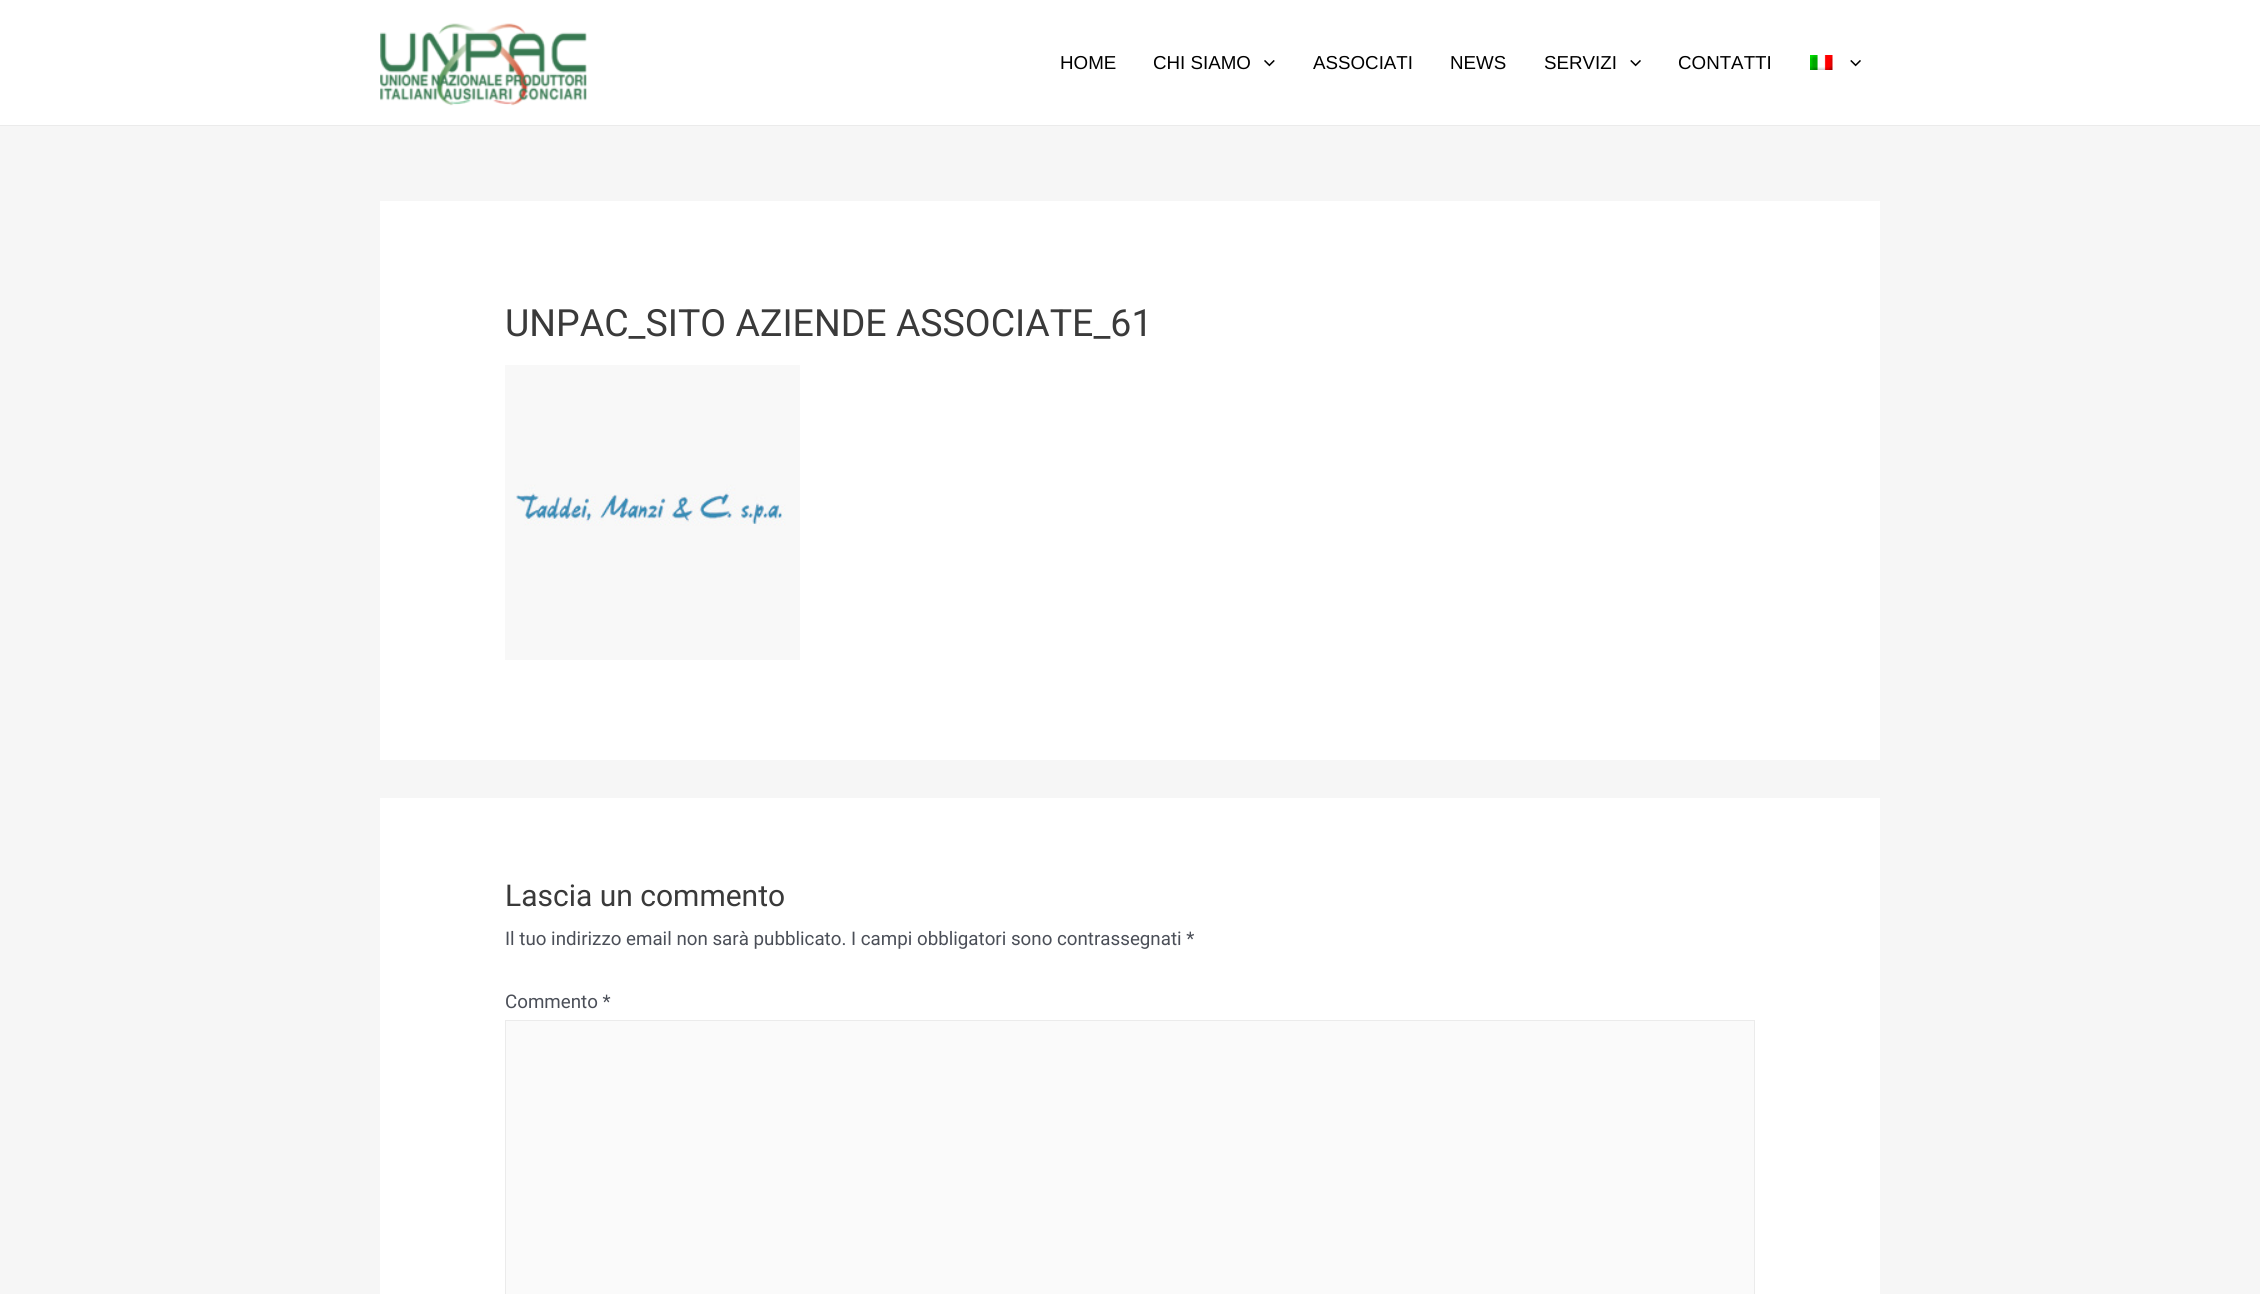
import math
import cairo

surface = cairo.ImageSurface(cairo.FORMAT_RGB24, 2260, 1294)
ctx = cairo.Context(surface)
options = cairo.FontOptions()
options.set_hint_metrics(cairo.HINT_METRICS_OFF)
options.set_hint_style(cairo.HINT_STYLE_NONE)
ctx.set_font_options(options)
ctx.set_miter_limit(4)


def picture(path, x, y, w, h):
    ctx.save()
    ctx.set_source_surface(cairo.ImageSurface.create_from_png(path), x, y)
    ctx.rectangle(x, y, w, h)
    ctx.fill()
    ctx.restore()


ctx.set_source_rgb(0.961, 0.961, 0.961)
ctx.paint()
ctx.set_source_rgb(1, 1, 1)
ctx.rectangle(0, 0, 2260, 125)
ctx.fill()
ctx.set_source_rgb(0.918, 0.918, 0.918)
ctx.rectangle(0, 125, 2260, 1)
ctx.fill()
picture("img1.png", 380, 23, 207, 83)
ctx.select_font_face("Liberation Sans")
ctx.set_font_size(18.75)
ctx.set_source_rgb(0, 0, 0)
ctx.move_to(1060, 69)
ctx.show_text("HOME")
ctx.move_to(1153, 69)
ctx.show_text("CHI SIAMO")
picture("img2.png", 1264, 60, 11, 7)
ctx.move_to(1313, 69)
ctx.show_text("ASSOCIATI")
ctx.move_to(1450, 69)
ctx.show_text("NEWS")
ctx.move_to(1544, 69)
ctx.show_text("SERVIZI")
picture("img3.png", 1630, 60, 11, 7)
ctx.move_to(1678, 69)
ctx.show_text("CONTATTI")
picture("img4.png", 1810, 55, 23, 15)
picture("img3.png", 1850, 60, 11, 7)
ctx.set_source_rgb(1, 1, 1)
ctx.rectangle(380, 201, 1500, 559)
ctx.fill()
ctx.select_font_face("Roboto")
ctx.set_font_size(37.5)
ctx.set_source_rgb(0.227, 0.227, 0.227)
ctx.move_to(505, 336)
ctx.show_text("UNPAC_SITO AZIENDE ASSOCIATE_61")
picture("img5.png", 505, 365, 295, 295)
ctx.set_source_rgb(1, 1, 1)
ctx.rectangle(380, 798, 1500, 496)
ctx.fill()
ctx.set_font_size(30)
ctx.set_source_rgb(0.227, 0.227, 0.227)
ctx.move_to(505, 906)
ctx.show_text("Lascia un commento")
ctx.set_font_size(18.75)
ctx.set_source_rgb(0.294, 0.31, 0.345)
ctx.move_to(505, 945)
ctx.show_text("Il tuo indirizzo email non sarà pubblicato. I campi obbligatori sono contrassegnati *")
ctx.move_to(505, 1008)
ctx.show_text("Commento *")
ctx.set_source_rgb(0.98, 0.98, 0.98)
ctx.rectangle(505.5, 1020.5, 1249, 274)
ctx.fill_preserve()
ctx.set_source_rgb(0.918, 0.918, 0.918)
ctx.set_line_width(1)
ctx.stroke()
surface.write_to_png("page.png")
